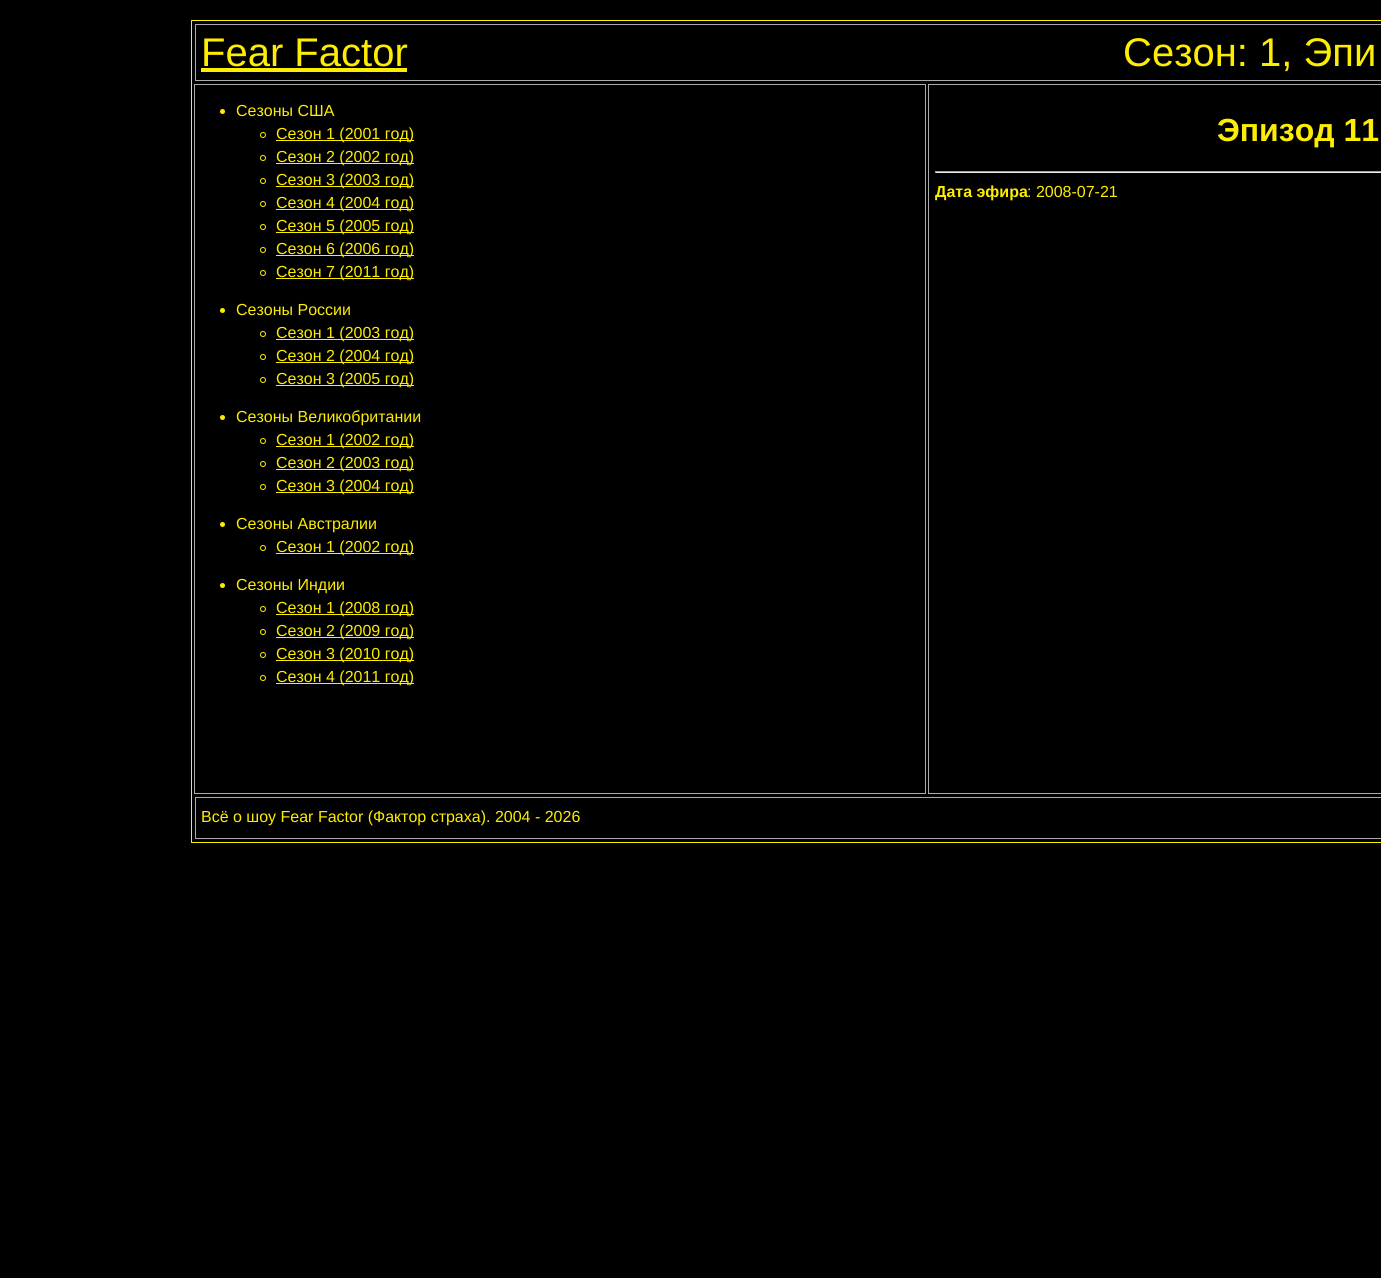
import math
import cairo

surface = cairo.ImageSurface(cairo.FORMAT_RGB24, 1381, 1278)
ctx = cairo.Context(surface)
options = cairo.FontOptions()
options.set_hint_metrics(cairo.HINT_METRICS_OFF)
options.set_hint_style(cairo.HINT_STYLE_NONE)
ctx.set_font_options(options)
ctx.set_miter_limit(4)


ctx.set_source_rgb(0, 0, 0)
ctx.paint()
ctx.rectangle(191.5, 20.5, 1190, 822)
ctx.set_source_rgb(0.992, 0.929, 0.004)
ctx.set_line_width(1)
ctx.stroke()
ctx.rectangle(195.5, 24.5, 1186, 56)
ctx.set_source_rgb(0.667, 0.667, 0.667)
ctx.stroke()
ctx.select_font_face("Liberation Sans")
ctx.set_font_size(40)
ctx.set_source_rgb(0.992, 0.929, 0.004)
ctx.move_to(201, 66)
ctx.show_text("Fear Factor")
ctx.rectangle(201, 68, 206, 4)
ctx.fill()
ctx.move_to(1123, 66)
ctx.show_text("Сезон: 1, Эпи")
ctx.rectangle(194.5, 84.5, 731, 709)
ctx.set_source_rgb(0.667, 0.667, 0.667)
ctx.stroke()
ctx.set_source_rgb(0.992, 0.929, 0.004)
ctx.arc(222.5, 111.5, 2.5, 0, 2 * math.pi)
ctx.fill()
ctx.set_font_size(16)
ctx.move_to(236, 116)
ctx.show_text("Сезоны США")
ctx.new_path()
ctx.arc(263, 135, 2.5, 0, 2 * math.pi)
ctx.stroke()
ctx.rectangle(276, 140, 138, 1)
ctx.fill()
ctx.move_to(276, 139)
ctx.show_text("Сезон 1 (2001 год)")
ctx.new_path()
ctx.arc(263, 158, 2.5, 0, 2 * math.pi)
ctx.stroke()
ctx.rectangle(276, 163, 138, 1)
ctx.fill()
ctx.move_to(276, 162)
ctx.show_text("Сезон 2 (2002 год)")
ctx.new_path()
ctx.arc(263, 181, 2.5, 0, 2 * math.pi)
ctx.stroke()
ctx.rectangle(276, 186, 138, 1)
ctx.fill()
ctx.move_to(276, 185)
ctx.show_text("Сезон 3 (2003 год)")
ctx.new_path()
ctx.arc(263, 204, 2.5, 0, 2 * math.pi)
ctx.stroke()
ctx.rectangle(276, 209, 138, 1)
ctx.fill()
ctx.move_to(276, 208)
ctx.show_text("Сезон 4 (2004 год)")
ctx.new_path()
ctx.arc(263, 227, 2.5, 0, 2 * math.pi)
ctx.stroke()
ctx.rectangle(276, 232, 138, 1)
ctx.fill()
ctx.move_to(276, 231)
ctx.show_text("Сезон 5 (2005 год)")
ctx.new_path()
ctx.arc(263, 250, 2.5, 0, 2 * math.pi)
ctx.stroke()
ctx.rectangle(276, 255, 138, 1)
ctx.fill()
ctx.move_to(276, 254)
ctx.show_text("Сезон 6 (2006 год)")
ctx.new_path()
ctx.arc(263, 273, 2.5, 0, 2 * math.pi)
ctx.stroke()
ctx.rectangle(276, 278, 138, 1)
ctx.fill()
ctx.move_to(276, 277)
ctx.show_text("Сезон 7 (2011 год)")
ctx.new_path()
ctx.arc(222.5, 310.5, 2.5, 0, 2 * math.pi)
ctx.fill()
ctx.move_to(236, 315)
ctx.show_text("Сезоны России")
ctx.new_path()
ctx.arc(263, 334, 2.5, 0, 2 * math.pi)
ctx.stroke()
ctx.rectangle(276, 339, 138, 1)
ctx.fill()
ctx.move_to(276, 338)
ctx.show_text("Сезон 1 (2003 год)")
ctx.new_path()
ctx.arc(263, 357, 2.5, 0, 2 * math.pi)
ctx.stroke()
ctx.rectangle(276, 362, 138, 1)
ctx.fill()
ctx.move_to(276, 361)
ctx.show_text("Сезон 2 (2004 год)")
ctx.new_path()
ctx.arc(263, 380, 2.5, 0, 2 * math.pi)
ctx.stroke()
ctx.rectangle(276, 385, 138, 1)
ctx.fill()
ctx.move_to(276, 384)
ctx.show_text("Сезон 3 (2005 год)")
ctx.new_path()
ctx.arc(222.5, 417.5, 2.5, 0, 2 * math.pi)
ctx.fill()
ctx.move_to(236, 422)
ctx.show_text("Сезоны Великобритании")
ctx.new_path()
ctx.arc(263, 441, 2.5, 0, 2 * math.pi)
ctx.stroke()
ctx.rectangle(276, 446, 138, 1)
ctx.fill()
ctx.move_to(276, 445)
ctx.show_text("Сезон 1 (2002 год)")
ctx.new_path()
ctx.arc(263, 464, 2.5, 0, 2 * math.pi)
ctx.stroke()
ctx.rectangle(276, 469, 138, 1)
ctx.fill()
ctx.move_to(276, 468)
ctx.show_text("Сезон 2 (2003 год)")
ctx.new_path()
ctx.arc(263, 487, 2.5, 0, 2 * math.pi)
ctx.stroke()
ctx.rectangle(276, 492, 138, 1)
ctx.fill()
ctx.move_to(276, 491)
ctx.show_text("Сезон 3 (2004 год)")
ctx.new_path()
ctx.arc(222.5, 524.5, 2.5, 0, 2 * math.pi)
ctx.fill()
ctx.move_to(236, 529)
ctx.show_text("Сезоны Австралии")
ctx.new_path()
ctx.arc(263, 548, 2.5, 0, 2 * math.pi)
ctx.stroke()
ctx.rectangle(276, 553, 138, 1)
ctx.fill()
ctx.move_to(276, 552)
ctx.show_text("Сезон 1 (2002 год)")
ctx.new_path()
ctx.arc(222.5, 585.5, 2.5, 0, 2 * math.pi)
ctx.fill()
ctx.move_to(236, 590)
ctx.show_text("Сезоны Индии")
ctx.new_path()
ctx.arc(263, 609, 2.5, 0, 2 * math.pi)
ctx.stroke()
ctx.rectangle(276, 614, 138, 1)
ctx.fill()
ctx.move_to(276, 613)
ctx.show_text("Сезон 1 (2008 год)")
ctx.new_path()
ctx.arc(263, 632, 2.5, 0, 2 * math.pi)
ctx.stroke()
ctx.rectangle(276, 637, 138, 1)
ctx.fill()
ctx.move_to(276, 636)
ctx.show_text("Сезон 2 (2009 год)")
ctx.new_path()
ctx.arc(263, 655, 2.5, 0, 2 * math.pi)
ctx.stroke()
ctx.rectangle(276, 660, 138, 1)
ctx.fill()
ctx.move_to(276, 659)
ctx.show_text("Сезон 3 (2010 год)")
ctx.new_path()
ctx.arc(263, 678, 2.5, 0, 2 * math.pi)
ctx.stroke()
ctx.rectangle(276, 683, 138, 1)
ctx.fill()
ctx.move_to(276, 682)
ctx.show_text("Сезон 4 (2011 год)")
ctx.rectangle(928.5, 84.5, 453, 709)
ctx.set_source_rgb(0.667, 0.667, 0.667)
ctx.stroke()
ctx.select_font_face("Liberation Sans", cairo.FONT_SLANT_NORMAL, cairo.FONT_WEIGHT_BOLD)
ctx.set_font_size(32)
ctx.set_source_rgb(0.992, 0.929, 0.004)
ctx.move_to(1217, 141)
ctx.show_text("Эпизод 11")
ctx.set_source_rgb(0.624, 0.624, 0.624)
ctx.rectangle(935, 171, 446, 1)
ctx.fill()
ctx.set_source_rgb(0.933, 0.933, 0.933)
ctx.rectangle(935, 172, 446, 1)
ctx.fill()
ctx.set_source_rgb(0.624, 0.624, 0.624)
ctx.rectangle(935, 171, 1, 2)
ctx.fill()
ctx.set_font_size(16)
ctx.set_source_rgb(0.992, 0.929, 0.004)
ctx.move_to(935, 197)
ctx.show_text("Дата эфира")
ctx.select_font_face("Liberation Sans")
ctx.move_to(1027, 197)
ctx.show_text(": 2008-07-21")
ctx.rectangle(195.5, 797.5, 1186, 41)
ctx.set_source_rgb(0.667, 0.667, 0.667)
ctx.stroke()
ctx.set_source_rgb(0.992, 0.929, 0.004)
ctx.move_to(201, 822)
ctx.show_text("Всё о шоу Fear Factor (Фактор страха). 2004 - 2026")
surface.write_to_png("page.png")
